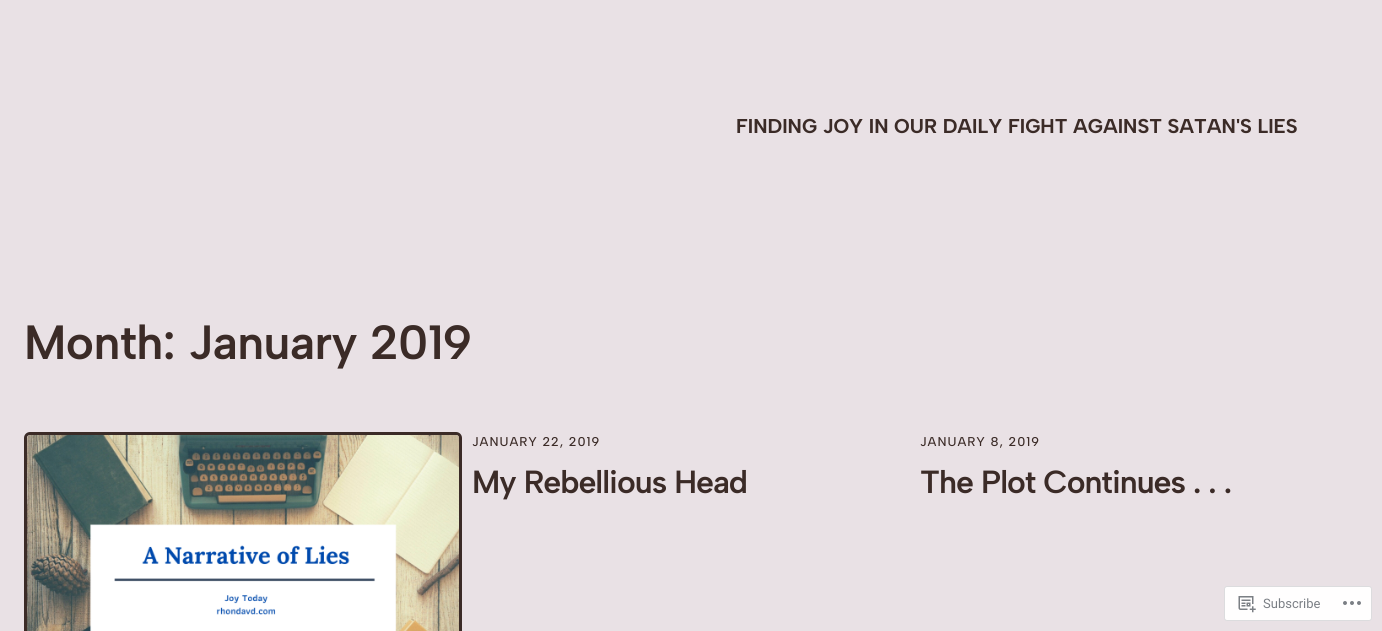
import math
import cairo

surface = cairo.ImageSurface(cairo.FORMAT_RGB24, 1382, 631)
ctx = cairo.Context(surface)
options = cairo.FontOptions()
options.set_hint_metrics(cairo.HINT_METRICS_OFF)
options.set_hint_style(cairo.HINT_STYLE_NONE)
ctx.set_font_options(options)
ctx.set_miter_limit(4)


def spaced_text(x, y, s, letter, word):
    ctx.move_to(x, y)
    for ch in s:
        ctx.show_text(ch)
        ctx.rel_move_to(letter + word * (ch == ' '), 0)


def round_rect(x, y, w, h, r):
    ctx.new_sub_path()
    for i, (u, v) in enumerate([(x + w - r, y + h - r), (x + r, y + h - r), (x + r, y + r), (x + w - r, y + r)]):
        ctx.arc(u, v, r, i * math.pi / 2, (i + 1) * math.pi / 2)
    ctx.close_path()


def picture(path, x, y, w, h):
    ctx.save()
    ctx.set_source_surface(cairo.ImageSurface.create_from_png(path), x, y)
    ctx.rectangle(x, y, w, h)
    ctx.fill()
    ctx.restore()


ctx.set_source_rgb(0.914, 0.882, 0.898)
ctx.paint()
ctx.select_font_face("Albert Sans", cairo.FONT_SLANT_NORMAL, cairo.FONT_WEIGHT_BOLD)
ctx.set_font_size(20)
ctx.set_source_rgb(0.231, 0.169, 0.153)
ctx.move_to(736, 133)
ctx.show_text("FINDING JOY IN OUR DAILY FIGHT AGAINST SATAN'S LIES")
ctx.select_font_face("Albert Sans SemiBold")
ctx.set_font_size(48)
spaced_text(24, 359, "Month: January 2019", -0.6, 0)
round_rect(25.5, 433.5, 435, 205, 4.5)
ctx.set_line_width(3)
ctx.stroke()
picture("img1.png", 27, 435, 432, 196)
ctx.select_font_face("Albert Sans Medium")
ctx.set_font_size(12.75)
spaced_text(472, 446, "JANUARY 22, 2019", 1, 0)
ctx.select_font_face("Albert Sans SemiBold")
ctx.set_font_size(32)
spaced_text(472, 493, "My Rebellious Head", -1, 0)
ctx.select_font_face("Albert Sans Medium")
ctx.set_font_size(12.75)
spaced_text(920, 446, "JANUARY 8, 2019", 1, 0)
ctx.select_font_face("Albert Sans SemiBold")
ctx.set_font_size(32)
spaced_text(920, 493, "The Plot Continues . . .", -1, 0)
ctx.set_source_rgb(1, 0.996, 0.996)
round_rect(1224.5, 586.5, 147, 34, 2.5)
ctx.fill_preserve()
ctx.set_source_rgb(0.863, 0.863, 0.871)
ctx.set_line_width(1)
ctx.stroke()
picture("img2.png", 1238, 596, 18, 17)
ctx.select_font_face("Roboto")
ctx.set_font_size(13)
ctx.set_source_rgb(0.478, 0.494, 0.518)
ctx.move_to(1263, 608)
ctx.show_text("Subscribe")
picture("img3.png", 1343, 601, 18, 4)
surface.write_to_png("page.png")
